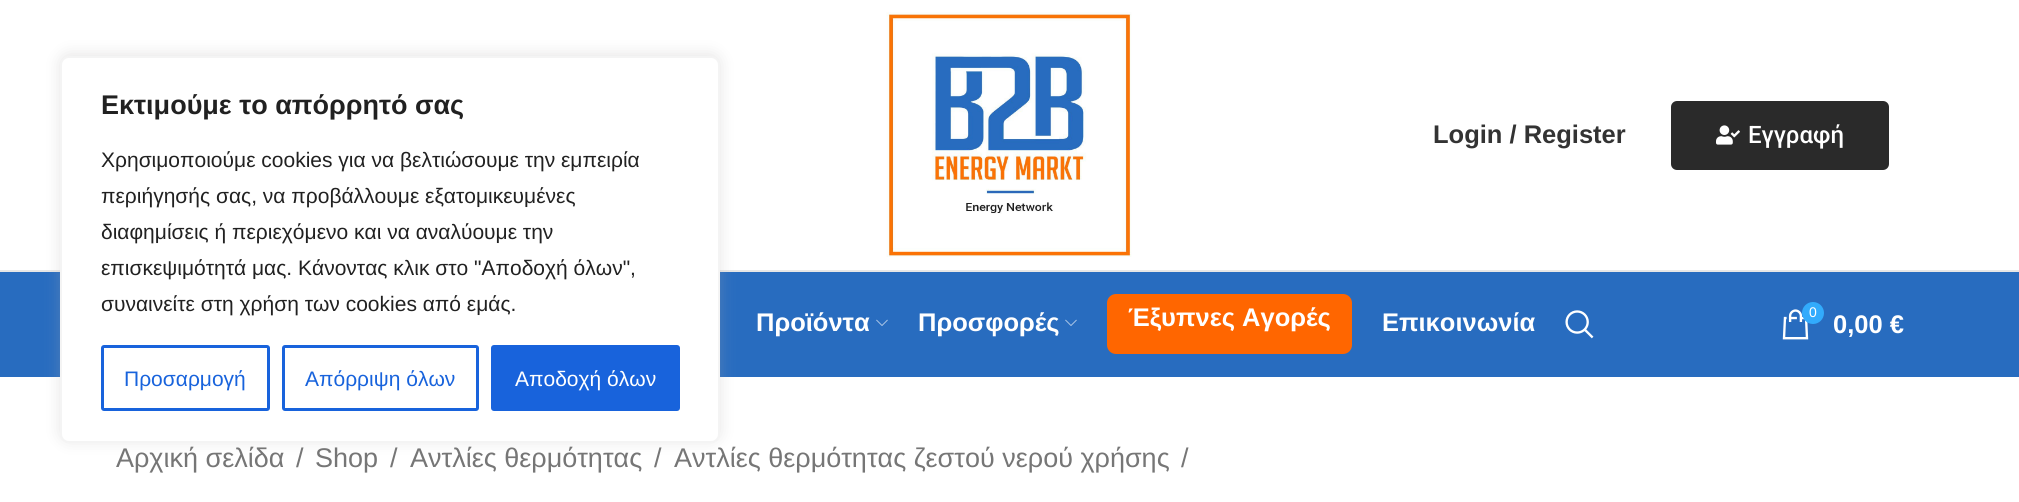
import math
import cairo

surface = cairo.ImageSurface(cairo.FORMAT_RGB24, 2019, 502)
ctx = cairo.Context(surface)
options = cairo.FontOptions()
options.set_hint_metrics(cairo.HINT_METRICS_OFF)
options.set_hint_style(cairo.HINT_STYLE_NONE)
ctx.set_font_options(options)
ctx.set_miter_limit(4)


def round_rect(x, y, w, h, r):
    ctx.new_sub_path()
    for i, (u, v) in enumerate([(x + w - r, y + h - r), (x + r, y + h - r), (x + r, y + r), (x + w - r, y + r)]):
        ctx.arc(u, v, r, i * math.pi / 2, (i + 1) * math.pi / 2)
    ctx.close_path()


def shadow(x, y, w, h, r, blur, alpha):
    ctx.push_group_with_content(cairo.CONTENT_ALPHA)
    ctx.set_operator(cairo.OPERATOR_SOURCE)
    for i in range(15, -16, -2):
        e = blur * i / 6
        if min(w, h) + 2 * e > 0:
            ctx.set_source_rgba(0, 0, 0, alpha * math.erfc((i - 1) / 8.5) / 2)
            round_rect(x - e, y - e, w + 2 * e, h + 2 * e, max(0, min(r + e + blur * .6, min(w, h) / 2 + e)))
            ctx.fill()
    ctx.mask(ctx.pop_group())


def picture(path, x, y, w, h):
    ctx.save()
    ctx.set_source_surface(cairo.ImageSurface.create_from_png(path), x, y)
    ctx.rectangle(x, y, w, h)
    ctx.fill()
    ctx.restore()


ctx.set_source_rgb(1, 1, 1)
ctx.paint()
ctx.set_source_rgb(0.902, 0.902, 0.902)
ctx.rectangle(0, 270, 2019, 2)
ctx.fill()
ctx.set_source_rgb(0.157, 0.424, 0.749)
ctx.rectangle(0, 272, 2019, 105)
ctx.fill()
ctx.set_source_rgb(0.675, 0.671, 0.671)
shadow(60, 54, 660, 387, 9, 7.5, 0.3)
ctx.set_source_rgb(1, 1, 1)
round_rect(61, 57, 658, 385, 8)
ctx.fill_preserve()
ctx.set_source_rgb(0.957, 0.957, 0.957)
ctx.stroke()
ctx.select_font_face("Liberation Sans", cairo.FONT_SLANT_NORMAL, cairo.FONT_WEIGHT_BOLD)
ctx.set_font_size(27)
ctx.set_source_rgb(0.129, 0.129, 0.129)
ctx.move_to(101, 114)
ctx.show_text("Εκτιμούμε το απόρρητό σας")
ctx.select_font_face("Liberation Sans")
ctx.set_font_size(21)
ctx.move_to(101, 167)
ctx.show_text("Χρησιμοποιούμε cookies για να βελτιώσουμε την εμπειρία")
ctx.move_to(101, 203)
ctx.show_text("περιήγησής σας, να προβάλλουμε εξατομικευμένες")
ctx.move_to(101, 239)
ctx.show_text("διαφημίσεις ή περιεχόμενο και να αναλύουμε την")
ctx.move_to(101, 275)
ctx.show_text("επισκεψιμότητά μας. Κάνοντας κλικ στο \"Αποδοχή όλων\",")
ctx.move_to(101, 311)
ctx.show_text("συναινείτε στη χρήση των cookies από εμάς.")
round_rect(102.5, 346.5, 166, 63, 1.5)
ctx.set_source_rgb(0.094, 0.388, 0.863)
ctx.set_line_width(3)
ctx.stroke()
ctx.move_to(124, 386)
ctx.show_text("Προσαρμογή")
round_rect(283.5, 346.5, 194, 63, 1.5)
ctx.stroke()
ctx.move_to(305, 386)
ctx.show_text("Απόρριψη όλων")
round_rect(492.5, 346.5, 186, 63, 1.5)
ctx.fill_preserve()
ctx.stroke()
ctx.set_source_rgb(1, 1, 1)
ctx.move_to(515, 386)
ctx.show_text("Αποδοχή όλων")
picture("img1.png", 886, 12, 246, 245)
ctx.select_font_face("Liberation Sans", cairo.FONT_SLANT_NORMAL, cairo.FONT_WEIGHT_BOLD)
ctx.set_font_size(25.5)
ctx.set_source_rgb(0.2, 0.2, 0.2)
ctx.move_to(1433, 143)
ctx.show_text("Login / Register")
ctx.set_source_rgb(0.165, 0.165, 0.165)
round_rect(1671, 101, 218, 69, 6)
ctx.fill()
picture("img2.png", 1716, 125, 24, 20)
ctx.select_font_face("Roboto Medium")
ctx.set_font_size(24)
ctx.set_source_rgb(1, 1, 1)
ctx.move_to(1748, 143)
ctx.show_text("Εγγραφή")
ctx.select_font_face("Liberation Sans", cairo.FONT_SLANT_NORMAL, cairo.FONT_WEIGHT_BOLD)
ctx.set_font_size(25.5)
ctx.move_to(756, 331)
ctx.show_text("Προϊόντα")
picture("img3.png", 876, 319, 12, 7)
ctx.move_to(918, 331)
ctx.show_text("Προσφορές")
picture("img3.png", 1065, 319, 12, 7)
ctx.set_source_rgb(1, 0.4, 0)
round_rect(1107, 294, 245, 60, 9)
ctx.fill()
ctx.set_source_rgb(1, 1, 1)
ctx.move_to(1128, 326)
ctx.show_text("Έξυπνες Αγορές")
ctx.move_to(1382, 331)
ctx.show_text("Επικοινωνία")
picture("img4.png", 1565, 310, 29, 29)
picture("img5.png", 1782, 309, 27, 31)
ctx.set_source_rgb(0.196, 0.671, 0.988)
ctx.arc(1813, 313, 11, 0, 2 * math.pi)
ctx.fill()
ctx.select_font_face("Liberation Sans")
ctx.set_font_size(14)
ctx.set_source_rgb(1, 1, 1)
ctx.move_to(1809, 317)
ctx.show_text("0")
ctx.select_font_face("Liberation Sans", cairo.FONT_SLANT_NORMAL, cairo.FONT_WEIGHT_BOLD)
ctx.set_font_size(25.5)
ctx.move_to(1833, 333)
ctx.show_text("0,00 €")
ctx.select_font_face("Liberation Sans")
ctx.set_font_size(27)
ctx.set_source_rgb(0.463, 0.463, 0.463)
ctx.move_to(116, 467)
ctx.show_text("Αρχική σελίδα")
ctx.move_to(296, 467)
ctx.show_text("/")
ctx.move_to(315, 467)
ctx.show_text("Shop")
ctx.move_to(390, 467)
ctx.show_text("/")
ctx.move_to(410, 467)
ctx.show_text("Αντλίες θερμότητας")
ctx.move_to(654, 467)
ctx.show_text("/")
ctx.move_to(674, 467)
ctx.show_text("Αντλίες θερμότητας ζεστού νερού χρήσης")
ctx.move_to(1181, 467)
ctx.show_text("/")
surface.write_to_png("page.png")
